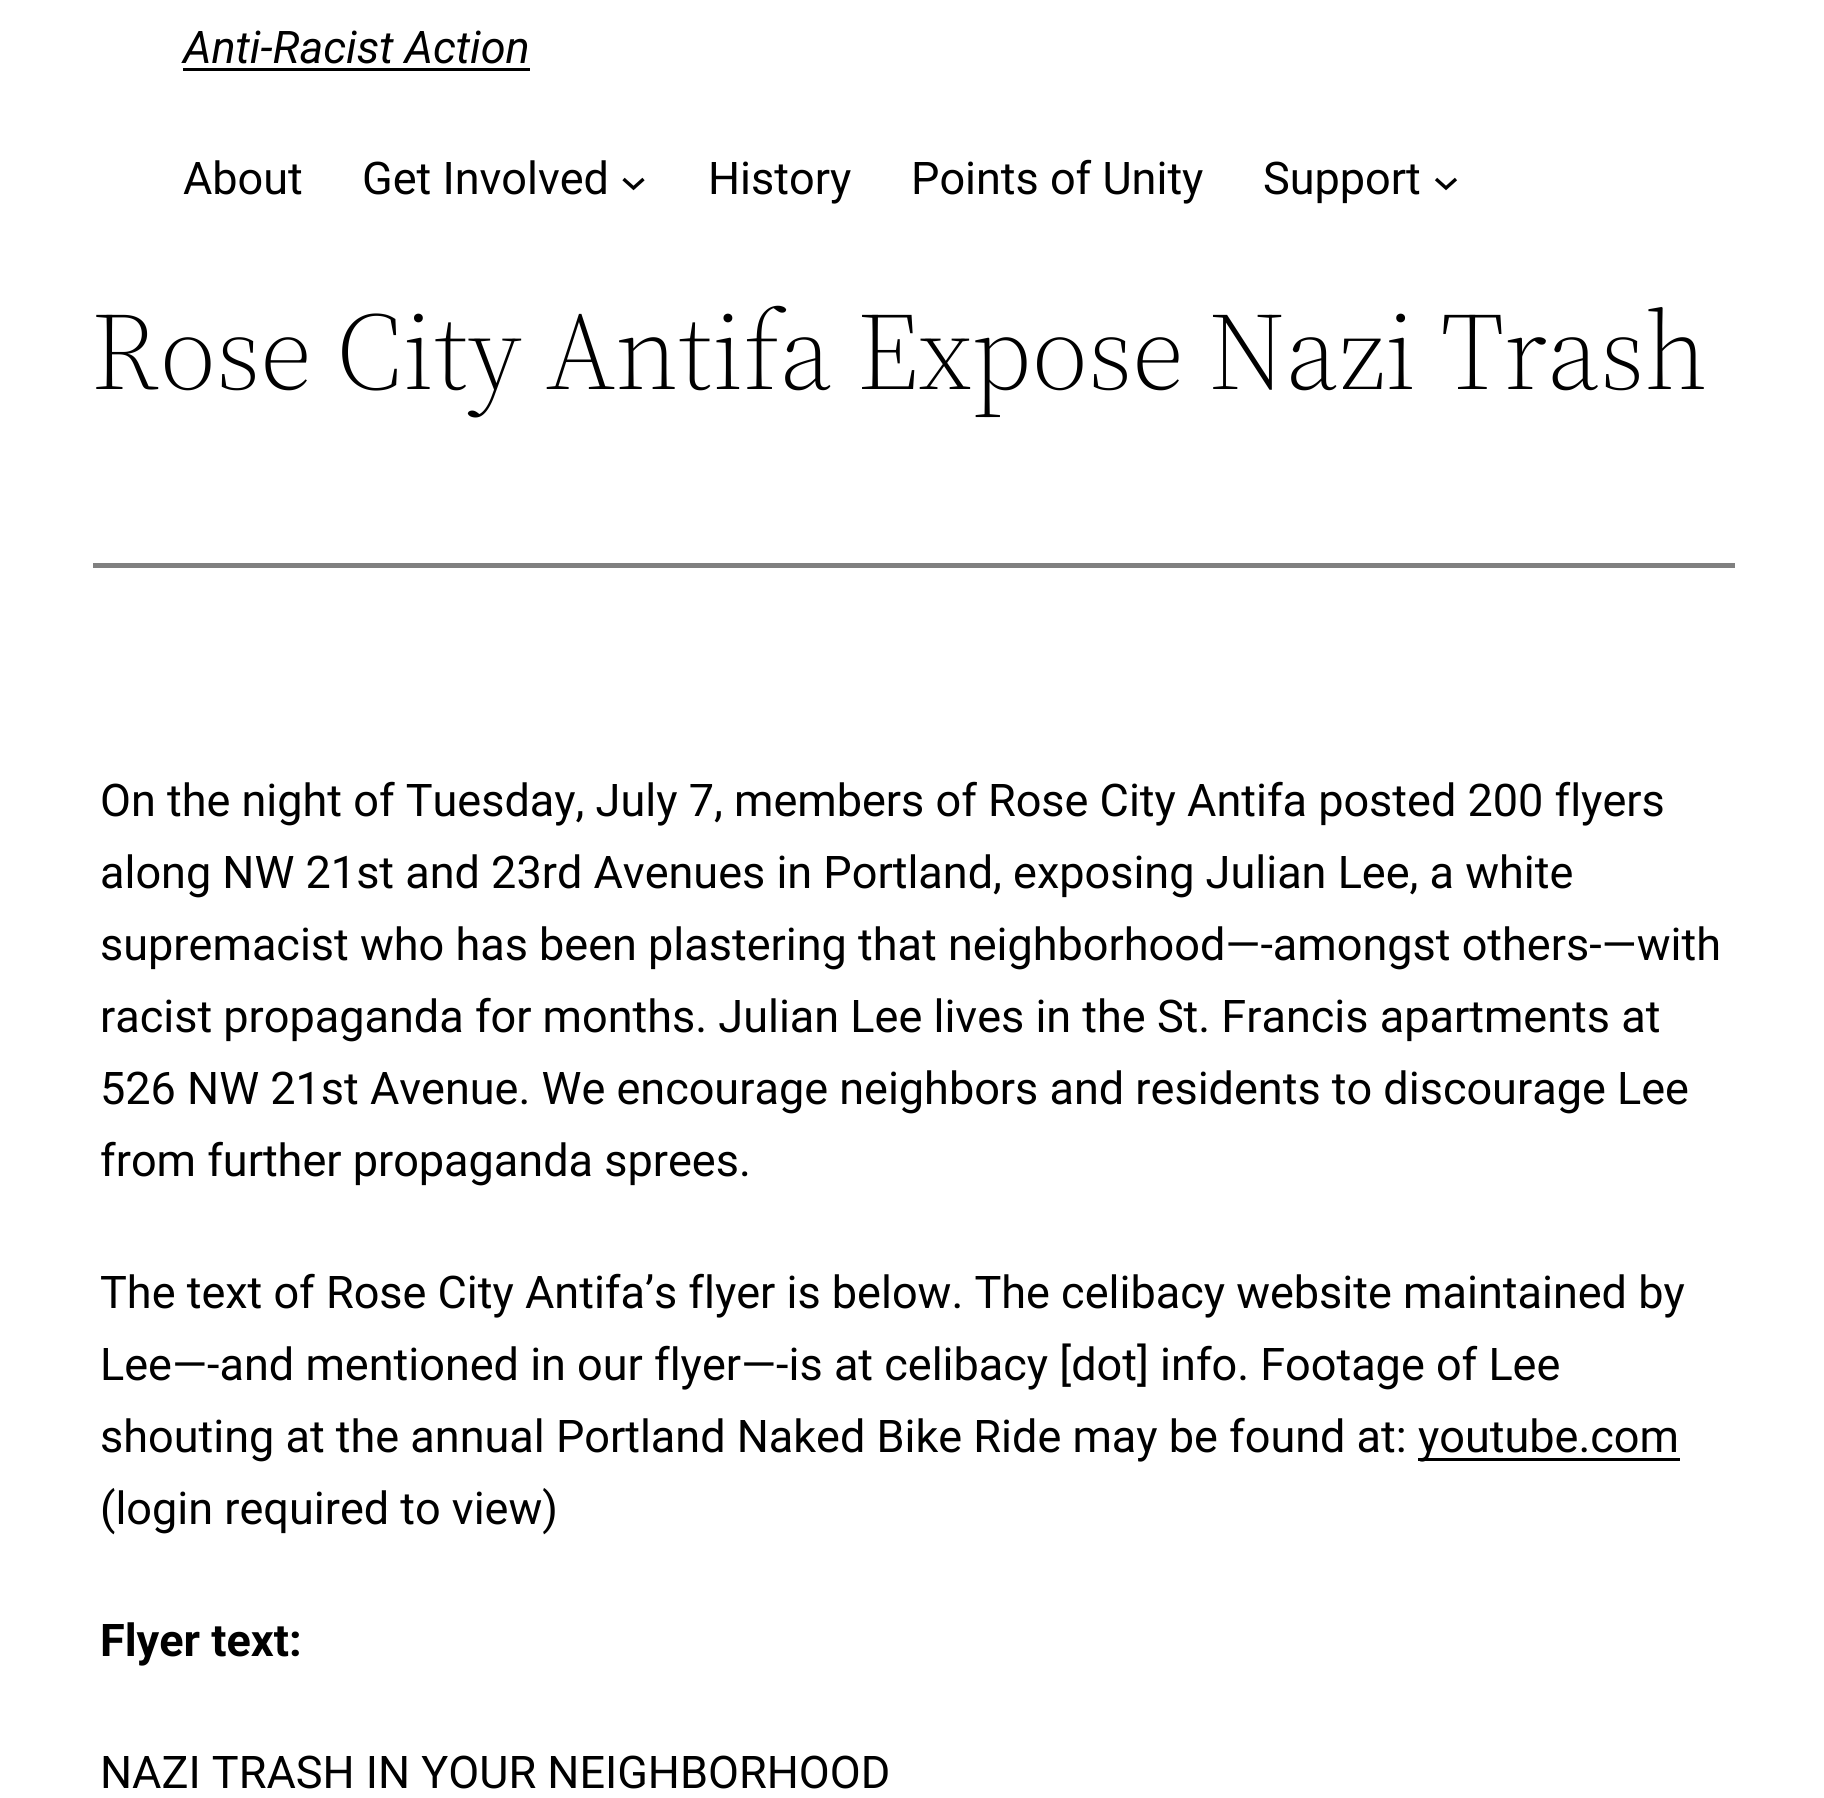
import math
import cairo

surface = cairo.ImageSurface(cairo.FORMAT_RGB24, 1824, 1798)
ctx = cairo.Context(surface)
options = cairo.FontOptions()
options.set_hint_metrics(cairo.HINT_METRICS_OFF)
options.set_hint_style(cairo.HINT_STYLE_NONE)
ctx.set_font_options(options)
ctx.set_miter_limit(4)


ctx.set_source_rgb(1, 1, 1)
ctx.paint()
ctx.select_font_face("Roboto", cairo.FONT_SLANT_ITALIC)
ctx.set_font_size(45)
ctx.set_source_rgb(0, 0, 0)
ctx.move_to(183, 63)
ctx.show_text("Anti-Racist Action")
ctx.rectangle(183, 68, 347, 3)
ctx.fill()
ctx.select_font_face("Roboto")
ctx.move_to(183, 194)
ctx.show_text("About")
ctx.move_to(362, 194)
ctx.show_text("Get Involved")
ctx.new_path()
ctx.move_to(623.5, 179)
ctx.line_to(633.5, 188)
ctx.line_to(643.5, 179)
ctx.set_line_width(3.4)
ctx.stroke()
ctx.move_to(708, 194)
ctx.show_text("History")
ctx.move_to(911, 194)
ctx.show_text("Points of Unity")
ctx.move_to(1263, 194)
ctx.show_text("Support")
ctx.new_path()
ctx.move_to(1436, 179)
ctx.line_to(1446, 188)
ctx.line_to(1456, 179)
ctx.stroke()
ctx.select_font_face("Source Serif 4 Light")
ctx.set_font_size(110)
ctx.move_to(91, 389)
ctx.show_text("Rose City Antifa Expose Nazi Trash")
ctx.set_source_rgb(0.502, 0.502, 0.502)
ctx.rectangle(93, 563, 1642, 5)
ctx.fill()
ctx.select_font_face("Roboto")
ctx.set_font_size(45)
ctx.set_source_rgb(0, 0, 0)
ctx.move_to(100, 816)
ctx.show_text("On the night of Tuesday, July 7, members of Rose City Antifa posted 200 flyers")
ctx.move_to(100, 888)
ctx.show_text("along NW 21st and 23rd Avenues in Portland, exposing Julian Lee, a white")
ctx.move_to(100, 960)
ctx.show_text("supremacist who has been plastering that neighborhood—-amongst others-—with")
ctx.move_to(100, 1032)
ctx.show_text("racist propaganda for months. Julian Lee lives in the St. Francis apartments at")
ctx.move_to(100, 1104)
ctx.show_text("526 NW 21st Avenue. We encourage neighbors and residents to discourage Lee")
ctx.move_to(100, 1176)
ctx.show_text("from further propaganda sprees.")
ctx.move_to(100, 1308)
ctx.show_text("The text of Rose City Antifa’s flyer is below. The celibacy website maintained by")
ctx.move_to(100, 1380)
ctx.show_text("Lee—-and mentioned in our flyer—-is at celibacy [dot] info. Footage of Lee")
ctx.move_to(100, 1452)
ctx.show_text("shouting at the annual Portland Naked Bike Ride may be found at:")
ctx.rectangle(1418, 1458, 262, 3)
ctx.fill()
ctx.move_to(1418, 1452)
ctx.show_text("youtube.com")
ctx.move_to(100, 1524)
ctx.show_text("(login required to view)")
ctx.select_font_face("Roboto", cairo.FONT_SLANT_NORMAL, cairo.FONT_WEIGHT_BOLD)
ctx.move_to(100, 1656)
ctx.show_text("Flyer text:")
ctx.select_font_face("Roboto")
ctx.move_to(100, 1788)
ctx.show_text("NAZI TRASH IN YOUR NEIGHBORHOOD")
surface.write_to_png("page.png")
